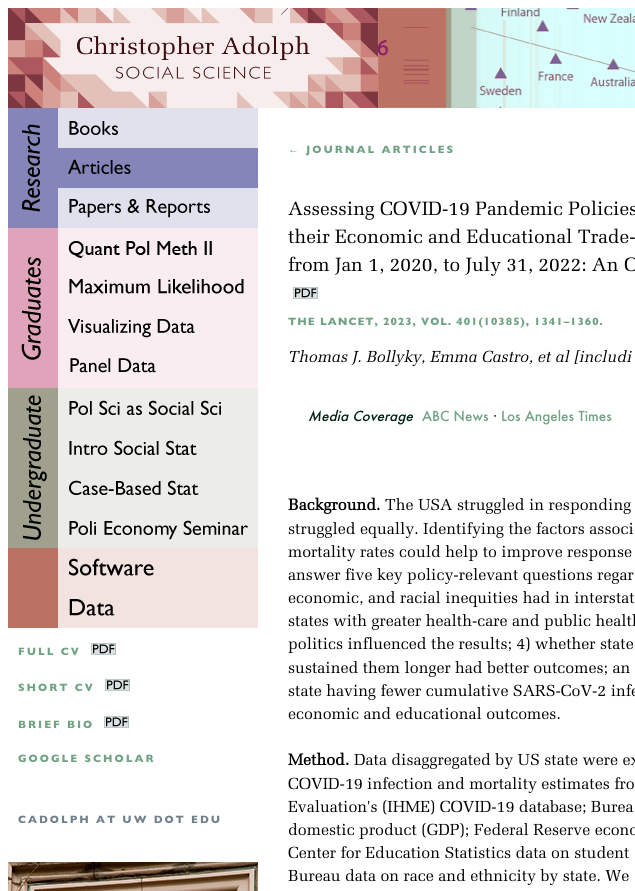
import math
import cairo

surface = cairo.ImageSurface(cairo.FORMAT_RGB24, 635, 891)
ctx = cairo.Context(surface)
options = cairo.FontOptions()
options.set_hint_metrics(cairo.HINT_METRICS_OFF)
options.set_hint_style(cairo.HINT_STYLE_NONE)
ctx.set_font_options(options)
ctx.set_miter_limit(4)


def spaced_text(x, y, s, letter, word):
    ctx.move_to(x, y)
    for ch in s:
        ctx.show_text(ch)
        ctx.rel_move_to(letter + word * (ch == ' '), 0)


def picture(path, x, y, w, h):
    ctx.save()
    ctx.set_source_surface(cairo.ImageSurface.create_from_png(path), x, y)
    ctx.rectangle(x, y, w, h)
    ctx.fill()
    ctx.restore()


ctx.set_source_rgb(1, 1, 1)
ctx.paint()
picture("img1.png", 8, 8, 370, 100)
picture("img2.png", 378, 8, 257, 100)
picture("img3.png", 8, 108, 50, 120)
picture("img4.png", 8, 228, 50, 160)
picture("img5.png", 8, 388, 50, 160)
ctx.set_source_rgb(0.737, 0.447, 0.388)
ctx.rectangle(8, 548, 50, 80)
ctx.fill()
picture("img6.png", 58, 108, 200, 40)
picture("img7.png", 58, 148, 200, 40)
picture("img8.png", 58, 188, 200, 40)
picture("img9.png", 58, 228, 200, 40)
picture("img10.png", 58, 268, 200, 40)
picture("img11.png", 58, 308, 200, 40)
picture("img12.png", 58, 348, 200, 40)
picture("img13.png", 58, 388, 200, 40)
picture("img14.png", 58, 428, 200, 40)
picture("img15.png", 58, 468, 200, 40)
picture("img16.png", 58, 508, 200, 40)
picture("img17.png", 58, 548, 200, 40)
picture("img18.png", 58, 588, 200, 40)
ctx.select_font_face("Gill Sans", cairo.FONT_SLANT_NORMAL, cairo.FONT_WEIGHT_BOLD)
ctx.set_font_size(10.75)
ctx.set_source_rgb(0.439, 0.635, 0.518)
spaced_text(18, 655, "FULL CV", 2, 0)
picture("img19.png", 91, 643, 25, 12)
spaced_text(18, 691, "SHORT CV", 2, 0)
picture("img19.png", 105, 679, 25, 12)
spaced_text(18, 728, "BRIEF BIO", 2, 0)
picture("img19.png", 104, 716, 25, 12)
spaced_text(18, 762, "GOOGLE SCHOLAR", 2, 0)
ctx.set_source_rgb(0.443, 0.506, 0.545)
spaced_text(18, 823, "CADOLPH AT UW DOT EDU", 2, 0)
picture("img20.png", 8, 862, 250, 29)
ctx.select_font_face("Liberation Sans")
ctx.set_source_rgb(0.439, 0.635, 0.518)
spaced_text(288, 153, "←", 2, 0)
ctx.select_font_face("Gill Sans", cairo.FONT_SLANT_NORMAL, cairo.FONT_WEIGHT_BOLD)
spaced_text(306, 153, "JOURNAL ARTICLES", 2, 0)
ctx.select_font_face("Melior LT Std")
ctx.set_font_size(19.25)
ctx.set_source_rgb(0, 0, 0)
ctx.move_to(288, 215)
ctx.show_text("Assessing COVID-19 Pandemic Policies")
ctx.move_to(288, 243)
ctx.show_text("their Economic and Educational Trade-")
ctx.move_to(288, 271)
ctx.show_text("from Jan 1, 2020, to July 31, 2022: An O")
picture("img19.png", 293, 287, 25, 12)
ctx.select_font_face("Gill Sans", cairo.FONT_SLANT_NORMAL, cairo.FONT_WEIGHT_BOLD)
ctx.set_font_size(10.75)
ctx.set_source_rgb(0.439, 0.635, 0.518)
spaced_text(288, 325, "THE LANCET, 2023, VOL. 401(10385), 1341–1360.", 1, 0)
ctx.select_font_face("Melior LT Std", cairo.FONT_SLANT_ITALIC)
ctx.set_font_size(16)
ctx.set_source_rgb(0, 0, 0)
ctx.move_to(288, 362)
ctx.show_text("Thomas J. Bollyky, Emma Castro, et al [includi")
ctx.select_font_face("Futura Medium", cairo.FONT_SLANT_ITALIC)
ctx.set_font_size(13.5)
ctx.set_source_rgb(0, 0.145, 0.078)
ctx.move_to(308, 421)
ctx.show_text("Media Coverage")
ctx.select_font_face("Futura Medium")
ctx.set_source_rgb(0.439, 0.635, 0.518)
ctx.move_to(422, 421)
ctx.show_text("ABC News")
ctx.set_source_rgb(0, 0.145, 0.078)
ctx.move_to(493, 421)
ctx.show_text("·")
ctx.set_source_rgb(0.439, 0.635, 0.518)
ctx.move_to(501, 421)
ctx.show_text("Los Angeles Times")
ctx.select_font_face("Melior LT Std", cairo.FONT_SLANT_NORMAL, cairo.FONT_WEIGHT_BOLD)
ctx.set_font_size(16)
ctx.set_source_rgb(0, 0, 0)
ctx.move_to(288, 510)
ctx.show_text("Background.")
ctx.select_font_face("Melior LT Std")
ctx.move_to(385, 510)
ctx.show_text("The USA struggled in responding")
ctx.move_to(288, 534)
ctx.show_text("struggled equally. Identifying the factors associ")
ctx.move_to(288, 557)
ctx.show_text("mortality rates could help to improve response")
ctx.move_to(288, 580)
ctx.show_text("answer five key policy-relevant questions regar")
ctx.move_to(288, 603)
ctx.show_text("economic, and racial inequities had in interstat")
ctx.move_to(288, 626)
ctx.show_text("states with greater health-care and public health")
ctx.move_to(288, 649)
ctx.show_text("politics influenced the results; 4) whether state")
ctx.move_to(288, 673)
ctx.show_text("sustained them longer had better outcomes; an")
ctx.move_to(288, 696)
ctx.show_text("state having fewer cumulative SARS-CoV-2 infe")
ctx.move_to(288, 719)
ctx.show_text("economic and educational outcomes.")
ctx.select_font_face("Melior LT Std", cairo.FONT_SLANT_NORMAL, cairo.FONT_WEIGHT_BOLD)
ctx.move_to(288, 765)
ctx.show_text("Method.")
ctx.select_font_face("Melior LT Std")
ctx.move_to(354, 765)
ctx.show_text("Data disaggregated by US state were ex")
ctx.move_to(288, 789)
ctx.show_text("COVID-19 infection and mortality estimates fro")
ctx.move_to(288, 812)
ctx.show_text("Evaluation's (IHME) COVID-19 database; Burea")
ctx.move_to(288, 835)
ctx.show_text("domestic product (GDP); Federal Reserve econo")
ctx.move_to(288, 858)
ctx.show_text("Center for Education Statistics data on student")
ctx.move_to(288, 881)
ctx.show_text("Bureau data on race and ethnicity by state. We")
surface.write_to_png("page.png")
